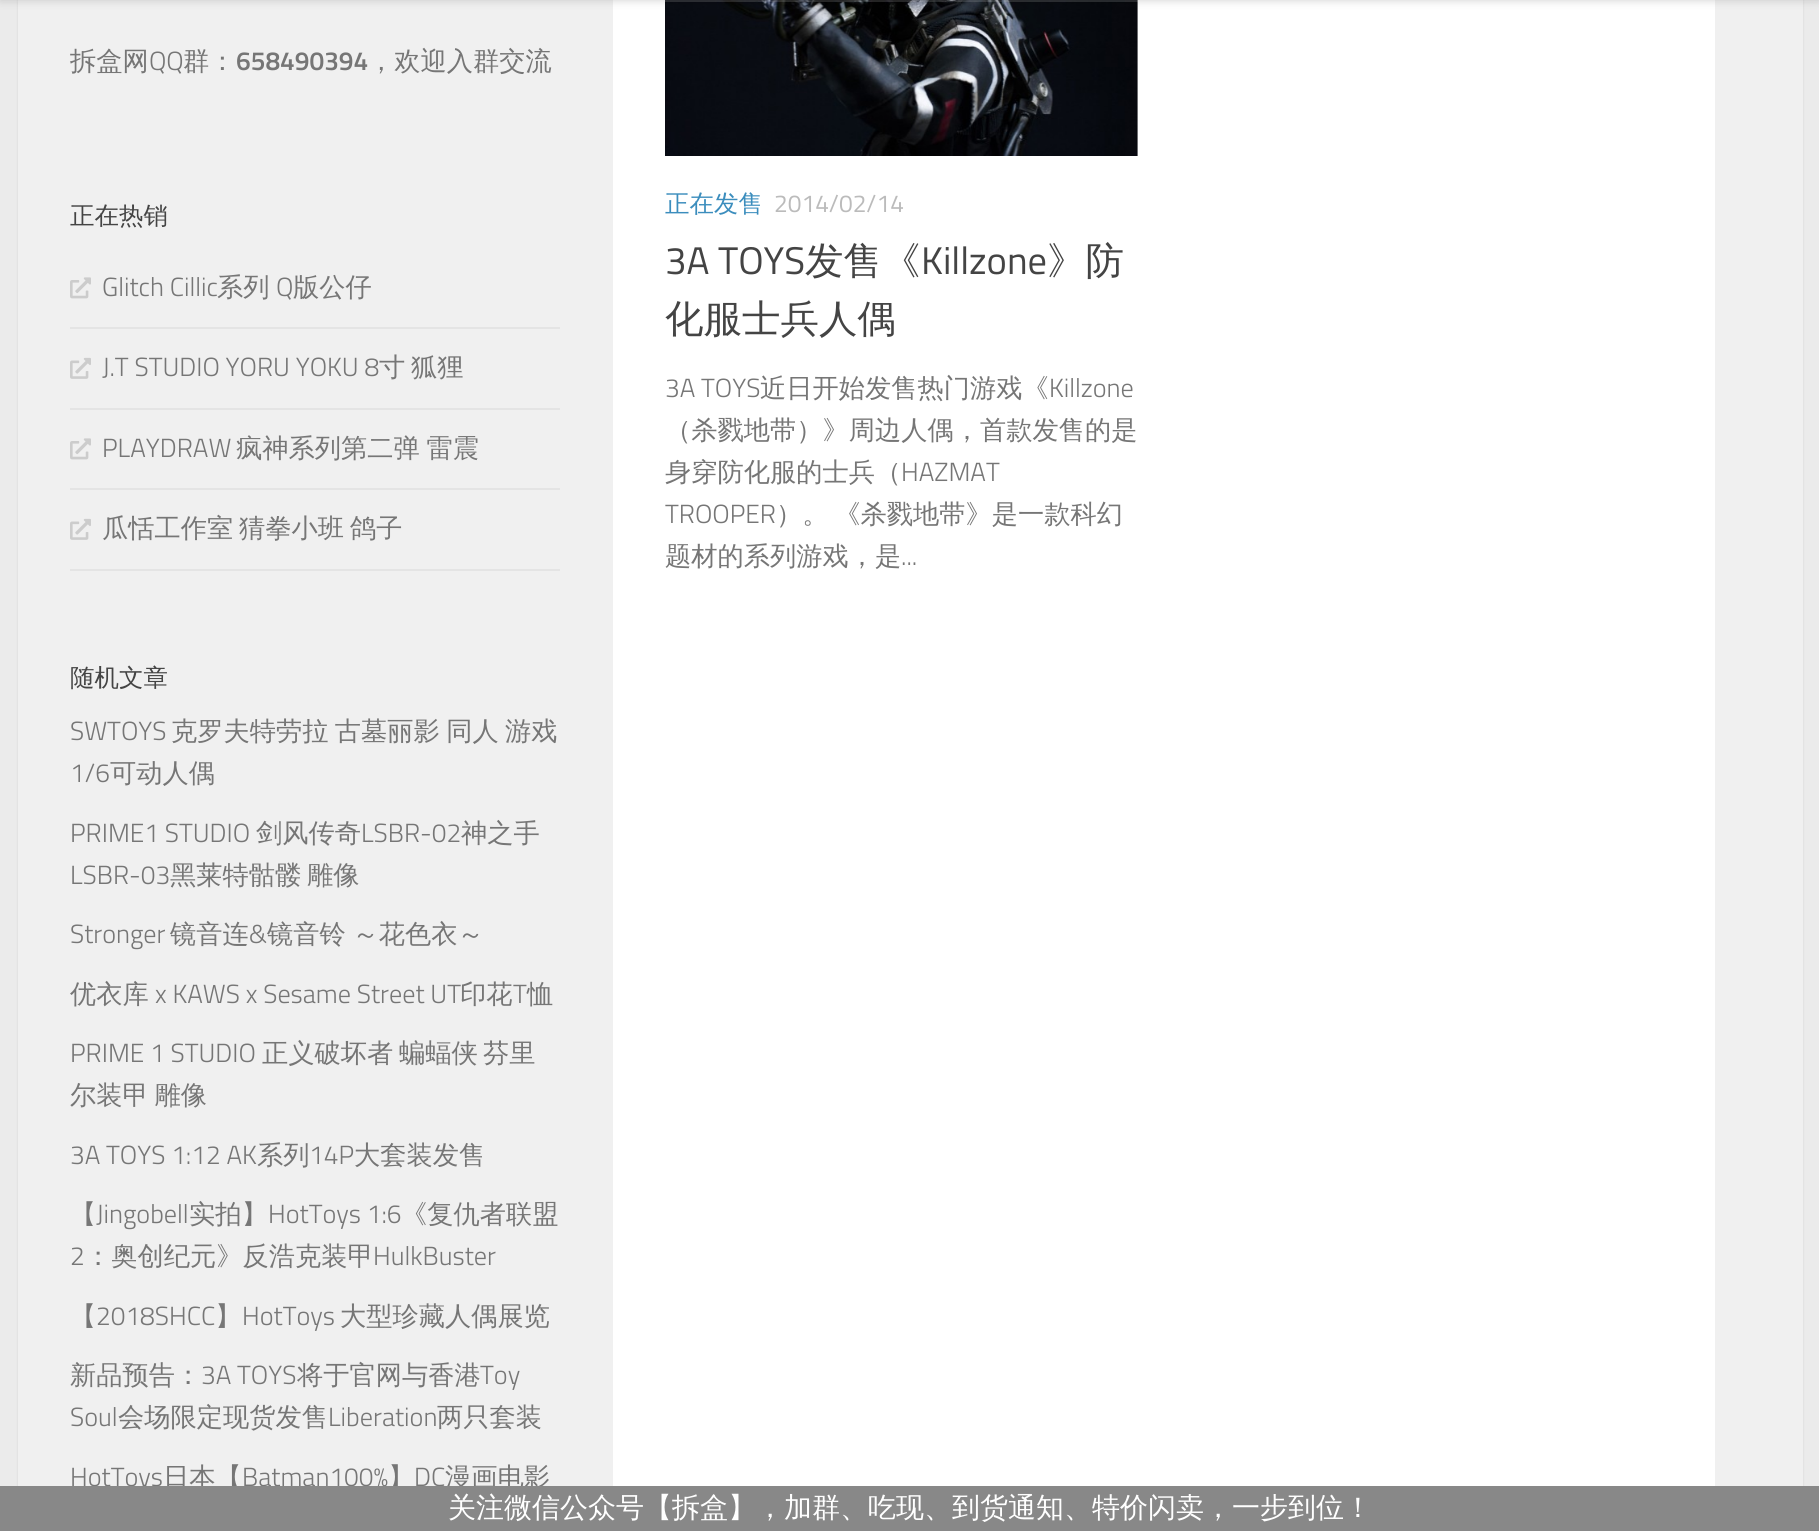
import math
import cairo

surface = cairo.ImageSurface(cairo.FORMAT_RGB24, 1819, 1531)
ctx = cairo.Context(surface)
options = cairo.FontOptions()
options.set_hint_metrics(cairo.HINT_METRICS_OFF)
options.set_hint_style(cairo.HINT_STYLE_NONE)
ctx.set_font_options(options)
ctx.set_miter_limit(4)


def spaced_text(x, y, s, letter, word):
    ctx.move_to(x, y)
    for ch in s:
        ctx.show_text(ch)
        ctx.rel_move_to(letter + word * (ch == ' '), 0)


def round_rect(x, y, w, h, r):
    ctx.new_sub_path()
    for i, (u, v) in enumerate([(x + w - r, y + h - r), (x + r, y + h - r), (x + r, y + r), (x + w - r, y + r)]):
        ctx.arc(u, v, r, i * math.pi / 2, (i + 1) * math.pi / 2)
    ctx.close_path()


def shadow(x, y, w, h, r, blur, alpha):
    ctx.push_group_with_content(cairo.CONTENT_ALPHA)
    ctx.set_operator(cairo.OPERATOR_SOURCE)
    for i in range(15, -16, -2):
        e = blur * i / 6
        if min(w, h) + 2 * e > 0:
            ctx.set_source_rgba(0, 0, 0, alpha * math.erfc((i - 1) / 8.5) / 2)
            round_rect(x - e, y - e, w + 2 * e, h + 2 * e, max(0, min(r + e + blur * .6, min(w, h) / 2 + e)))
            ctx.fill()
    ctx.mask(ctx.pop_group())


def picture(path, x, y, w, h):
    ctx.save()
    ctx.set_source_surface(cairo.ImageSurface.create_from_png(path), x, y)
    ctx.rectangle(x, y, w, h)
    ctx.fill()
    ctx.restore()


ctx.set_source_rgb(0.918, 0.918, 0.918)
ctx.paint()
ctx.set_source_rgb(0, 0, 0)
shadow(18, -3, 1785, 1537, 0, 1, 0.1)
ctx.set_source_rgb(1, 1, 1)
ctx.rectangle(613, 0, 1102, 1486)
ctx.fill()
ctx.set_source_rgb(0.941, 0.941, 0.941)
ctx.rectangle(18, 0, 595, 1486)
ctx.fill()
ctx.rectangle(1715, 0, 88, 1486)
ctx.fill()
picture("img3.png", 665, 0, 473, 156)
ctx.set_source_rgba(1, 1, 1, 0.15)
ctx.rectangle(0, 0, 1819, 2)
ctx.fill()
ctx.set_source_rgb(0, 0, 0)
shadow(0, -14, 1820, 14, 0, 4.5, 0.2)
ctx.select_font_face("WenQuanYi Zen Hei Medium")
ctx.set_font_size(26.25)
ctx.set_source_rgb(0.463, 0.463, 0.463)
ctx.move_to(70, 70)
ctx.show_text("拆盒网")
ctx.select_font_face("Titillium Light")
ctx.move_to(149, 70)
ctx.show_text("QQ")
ctx.select_font_face("WenQuanYi Zen Hei Medium")
ctx.move_to(183, 70)
ctx.show_text("群：")
ctx.select_font_face("Titillium SemiBold")
ctx.move_to(236, 70)
ctx.show_text("658490394")
ctx.select_font_face("WenQuanYi Zen Hei Medium")
ctx.move_to(368, 70)
ctx.show_text("，欢迎入群交流")
ctx.set_font_size(24.5)
ctx.set_source_rgb(0.267, 0.267, 0.267)
ctx.move_to(70, 224)
ctx.show_text("正在热销")
ctx.set_source_rgb(0.894, 0.894, 0.894)
ctx.rectangle(70, 327, 490, 2)
ctx.fill()
picture("img1.png", 70, 277, 21, 22)
ctx.select_font_face("Titillium Light")
ctx.set_font_size(26.25)
ctx.set_source_rgb(0.463, 0.463, 0.463)
ctx.move_to(102, 296)
ctx.show_text("Glitch Cillic")
ctx.select_font_face("WenQuanYi Zen Hei Medium")
ctx.move_to(217, 296)
ctx.show_text("系列")
ctx.select_font_face("Titillium Light")
ctx.move_to(276, 296)
ctx.show_text("Q")
ctx.select_font_face("WenQuanYi Zen Hei Medium")
ctx.move_to(293, 296)
ctx.show_text("版公仔")
ctx.set_source_rgb(0.894, 0.894, 0.894)
ctx.rectangle(70, 408, 490, 2)
ctx.fill()
picture("img2.png", 70, 357, 21, 22)
ctx.select_font_face("Titillium Light")
ctx.set_source_rgb(0.463, 0.463, 0.463)
ctx.move_to(102, 376)
ctx.show_text("J.T STUDIO YORU YOKU 8")
ctx.select_font_face("WenQuanYi Zen Hei Medium")
ctx.move_to(379, 376)
ctx.show_text("寸")
ctx.move_to(411, 376)
ctx.show_text("狐狸")
ctx.set_source_rgb(0.894, 0.894, 0.894)
ctx.rectangle(70, 488, 490, 2)
ctx.fill()
picture("img1.png", 70, 438, 21, 22)
ctx.select_font_face("Titillium Light")
ctx.set_source_rgb(0.463, 0.463, 0.463)
ctx.move_to(102, 457)
ctx.show_text("PLAYDRAW")
ctx.select_font_face("WenQuanYi Zen Hei Medium")
spaced_text(236, 457, "疯神系列第二弹 雷震", 0, -1)
ctx.set_source_rgb(0.894, 0.894, 0.894)
ctx.rectangle(70, 569, 490, 2)
ctx.fill()
picture("img2.png", 70, 518, 21, 22)
ctx.set_source_rgb(0.463, 0.463, 0.463)
spaced_text(102, 537, "瓜恬工作室 猜拳小班 鸽子", 0, -2)
ctx.set_font_size(24.5)
ctx.set_source_rgb(0.267, 0.267, 0.267)
ctx.move_to(70, 686)
ctx.show_text("随机文章")
ctx.select_font_face("Titillium Light")
ctx.set_font_size(26.25)
ctx.set_source_rgb(0.463, 0.463, 0.463)
ctx.move_to(70, 740)
ctx.show_text("SWTOYS")
ctx.select_font_face("WenQuanYi Zen Hei Medium")
spaced_text(171, 740, "克罗夫特劳拉 古墓丽影 同人 游戏", 0, -1.5)
ctx.select_font_face("Titillium Light")
ctx.move_to(70, 782)
ctx.show_text("1/6")
ctx.select_font_face("WenQuanYi Zen Hei Medium")
ctx.move_to(110, 782)
ctx.show_text("可动人偶")
ctx.select_font_face("Titillium Light")
ctx.move_to(70, 842)
ctx.show_text("PRIME1 STUDIO")
ctx.select_font_face("WenQuanYi Zen Hei Medium")
ctx.move_to(256, 842)
ctx.show_text("剑风传奇")
ctx.select_font_face("Titillium Light")
ctx.move_to(361, 842)
ctx.show_text("LSBR-02")
ctx.select_font_face("WenQuanYi Zen Hei Medium")
ctx.move_to(461, 842)
ctx.show_text("神之手")
ctx.select_font_face("Titillium Light")
ctx.move_to(70, 884)
ctx.show_text("LSBR-03")
ctx.select_font_face("WenQuanYi Zen Hei Medium")
spaced_text(170, 884, "黑莱特骷髅 雕像", 0, -2)
ctx.select_font_face("Titillium Light")
ctx.move_to(70, 943)
ctx.show_text("Stronger")
ctx.select_font_face("WenQuanYi Zen Hei Medium")
ctx.move_to(170, 943)
ctx.show_text("镜音连")
ctx.select_font_face("Titillium Light")
ctx.move_to(249, 943)
ctx.show_text("&")
ctx.select_font_face("WenQuanYi Zen Hei Medium")
spaced_text(267, 943, "镜音铃 ～花色衣～", 0, -1)
ctx.move_to(70, 1003)
ctx.show_text("优衣库")
ctx.select_font_face("Titillium Light")
ctx.move_to(155, 1003)
ctx.show_text("x KAWS x Sesame Street UT")
ctx.select_font_face("WenQuanYi Zen Hei Medium")
ctx.move_to(460, 1003)
ctx.show_text("印花")
ctx.select_font_face("Titillium Light")
ctx.move_to(513, 1003)
ctx.show_text("T")
ctx.select_font_face("WenQuanYi Zen Hei Medium")
ctx.move_to(527, 1003)
ctx.show_text("恤")
ctx.select_font_face("Titillium Light")
ctx.move_to(70, 1062)
ctx.show_text("PRIME 1 STUDIO")
ctx.select_font_face("WenQuanYi Zen Hei Medium")
ctx.move_to(262, 1062)
ctx.show_text("正义破坏者")
ctx.move_to(399, 1062)
ctx.show_text("蝙蝠侠")
ctx.move_to(483, 1062)
ctx.show_text("芬里")
spaced_text(70, 1104, "尔装甲 雕像", 0, -2)
ctx.select_font_face("Titillium Light")
ctx.move_to(70, 1164)
ctx.show_text("3A TOYS 1:12 AK")
ctx.select_font_face("WenQuanYi Zen Hei Medium")
ctx.move_to(257, 1164)
ctx.show_text("系列")
ctx.select_font_face("Titillium Light")
ctx.move_to(309, 1164)
ctx.show_text("14P")
ctx.select_font_face("WenQuanYi Zen Hei Medium")
ctx.move_to(354, 1164)
ctx.show_text("大套装发售")
ctx.move_to(70, 1223)
ctx.show_text("【")
ctx.select_font_face("Titillium Light")
ctx.move_to(96, 1223)
ctx.show_text("Jingobell")
ctx.select_font_face("WenQuanYi Zen Hei Medium")
ctx.move_to(189, 1223)
ctx.show_text("实拍】")
ctx.select_font_face("Titillium Light")
ctx.move_to(268, 1223)
ctx.show_text("HotToys 1:6")
ctx.select_font_face("WenQuanYi Zen Hei Medium")
ctx.move_to(401, 1223)
ctx.show_text("《复仇者联盟")
ctx.select_font_face("Titillium Light")
ctx.move_to(70, 1265)
ctx.show_text("2")
ctx.select_font_face("WenQuanYi Zen Hei Medium")
ctx.move_to(85, 1265)
ctx.show_text("：奥创纪元》反浩克装甲")
ctx.select_font_face("Titillium Light")
ctx.move_to(373, 1265)
ctx.show_text("HulkBuster")
ctx.select_font_face("WenQuanYi Zen Hei Medium")
ctx.move_to(70, 1325)
ctx.show_text("【")
ctx.select_font_face("Titillium Light")
ctx.move_to(96, 1325)
ctx.show_text("2018SHCC")
ctx.select_font_face("WenQuanYi Zen Hei Medium")
ctx.move_to(215, 1325)
ctx.show_text("】")
ctx.select_font_face("Titillium Light")
ctx.move_to(242, 1325)
ctx.show_text("HotToys")
ctx.select_font_face("WenQuanYi Zen Hei Medium")
ctx.move_to(340, 1325)
ctx.show_text("大型珍藏人偶展览")
ctx.move_to(70, 1384)
ctx.show_text("新品预告：")
ctx.select_font_face("Titillium Light")
ctx.move_to(201, 1384)
ctx.show_text("3A TOYS")
ctx.select_font_face("WenQuanYi Zen Hei Medium")
ctx.move_to(297, 1384)
ctx.show_text("将于官网与香港")
ctx.select_font_face("Titillium Light")
ctx.move_to(480, 1384)
ctx.show_text("Toy")
ctx.move_to(70, 1426)
ctx.show_text("Soul")
ctx.select_font_face("WenQuanYi Zen Hei Medium")
ctx.move_to(118, 1426)
ctx.show_text("会场限定现货发售")
ctx.select_font_face("Titillium Light")
ctx.move_to(328, 1426)
ctx.show_text("Liberation")
ctx.select_font_face("WenQuanYi Zen Hei Medium")
ctx.move_to(437, 1426)
ctx.show_text("两只套装")
ctx.select_font_face("Titillium Light")
ctx.move_to(70, 1486)
ctx.show_text("HotToys")
ctx.select_font_face("WenQuanYi Zen Hei Medium")
ctx.move_to(163, 1486)
ctx.show_text("日本【")
ctx.select_font_face("Titillium Light")
ctx.move_to(242, 1486)
ctx.show_text("Batman100%")
ctx.select_font_face("WenQuanYi Zen Hei Medium")
ctx.move_to(388, 1486)
ctx.show_text("】")
ctx.select_font_face("Titillium Light")
ctx.move_to(414, 1486)
ctx.show_text("DC")
ctx.select_font_face("WenQuanYi Zen Hei Medium")
ctx.move_to(445, 1486)
ctx.show_text("漫画电影")
ctx.set_font_size(24.5)
ctx.set_source_rgb(0.231, 0.553, 0.741)
ctx.move_to(665, 212)
ctx.show_text("正在发售")
ctx.select_font_face("Titillium")
ctx.set_source_rgb(0.733, 0.733, 0.733)
ctx.move_to(774, 212)
ctx.show_text("2014/02/14")
ctx.set_font_size(38.5)
ctx.set_source_rgb(0.267, 0.267, 0.267)
ctx.move_to(665, 274)
ctx.show_text("3A TOYS")
ctx.select_font_face("WenQuanYi Zen Hei Medium")
ctx.move_to(805, 274)
ctx.show_text("发售《")
ctx.select_font_face("Titillium")
ctx.move_to(921, 274)
ctx.show_text("Killzone")
ctx.select_font_face("WenQuanYi Zen Hei Medium")
ctx.move_to(1047, 274)
ctx.show_text("》防")
ctx.move_to(665, 332)
ctx.show_text("化服士兵人偶")
ctx.select_font_face("Titillium Light")
ctx.set_font_size(26.25)
ctx.set_source_rgb(0.463, 0.463, 0.463)
ctx.move_to(665, 397)
ctx.show_text("3A TOYS")
ctx.select_font_face("WenQuanYi Zen Hei Medium")
ctx.move_to(760, 397)
ctx.show_text("近日开始发售热门游戏《")
ctx.select_font_face("Titillium Light")
ctx.move_to(1049, 397)
ctx.show_text("Killzone")
ctx.select_font_face("WenQuanYi Zen Hei Medium")
ctx.move_to(665, 439)
ctx.show_text("（杀戮地带）》周边人偶，首款发售的是")
ctx.move_to(665, 481)
ctx.show_text("身穿防化服的士兵（")
ctx.select_font_face("Titillium Light")
ctx.move_to(901, 481)
ctx.show_text("HAZMAT")
ctx.move_to(665, 523)
ctx.show_text("TROOPER")
ctx.select_font_face("WenQuanYi Zen Hei Medium")
spaced_text(776, 523, "）。 《杀戮地带》是一款科幻", 0, -2)
ctx.move_to(665, 565)
ctx.show_text("题材的系列游戏，是")
ctx.select_font_face("Titillium Light")
ctx.move_to(901, 565)
ctx.show_text("...")
ctx.set_source_rgb(0.533, 0.533, 0.533)
ctx.rectangle(0, 1486, 1819, 45)
ctx.fill()
ctx.select_font_face("WenQuanYi Zen Hei Medium")
ctx.set_font_size(28)
ctx.set_source_rgb(1, 1, 1)
ctx.move_to(448, 1517)
ctx.show_text("关注微信公众号【拆盒】，加群、吃现、到货通知、特价闪卖，一步到位！")
surface.write_to_png("page.png")
